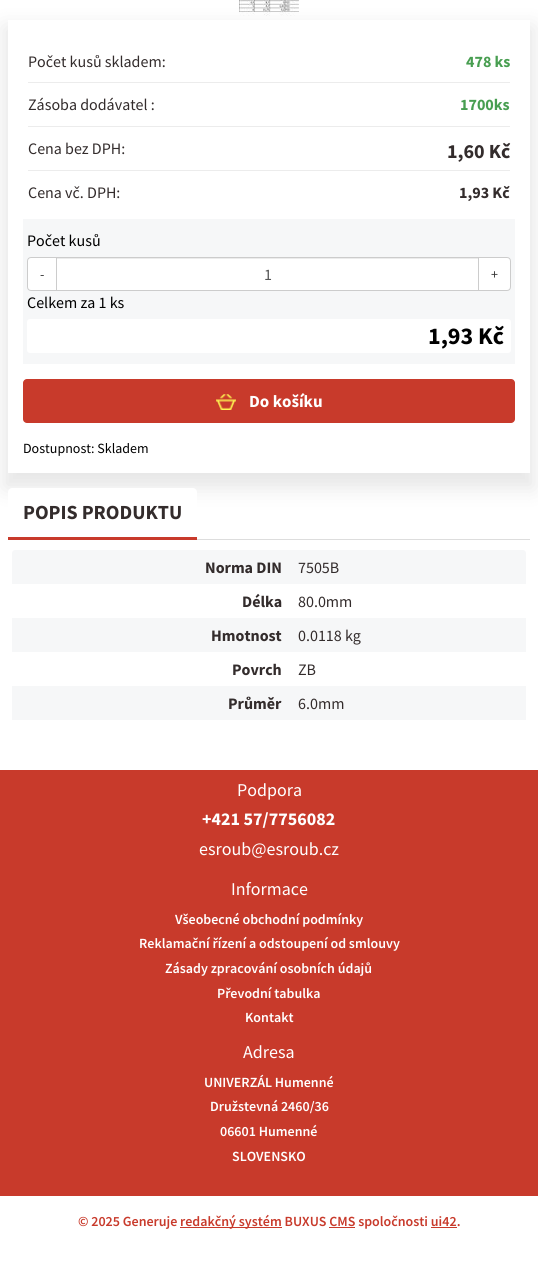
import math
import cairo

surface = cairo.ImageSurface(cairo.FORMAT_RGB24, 538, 1266)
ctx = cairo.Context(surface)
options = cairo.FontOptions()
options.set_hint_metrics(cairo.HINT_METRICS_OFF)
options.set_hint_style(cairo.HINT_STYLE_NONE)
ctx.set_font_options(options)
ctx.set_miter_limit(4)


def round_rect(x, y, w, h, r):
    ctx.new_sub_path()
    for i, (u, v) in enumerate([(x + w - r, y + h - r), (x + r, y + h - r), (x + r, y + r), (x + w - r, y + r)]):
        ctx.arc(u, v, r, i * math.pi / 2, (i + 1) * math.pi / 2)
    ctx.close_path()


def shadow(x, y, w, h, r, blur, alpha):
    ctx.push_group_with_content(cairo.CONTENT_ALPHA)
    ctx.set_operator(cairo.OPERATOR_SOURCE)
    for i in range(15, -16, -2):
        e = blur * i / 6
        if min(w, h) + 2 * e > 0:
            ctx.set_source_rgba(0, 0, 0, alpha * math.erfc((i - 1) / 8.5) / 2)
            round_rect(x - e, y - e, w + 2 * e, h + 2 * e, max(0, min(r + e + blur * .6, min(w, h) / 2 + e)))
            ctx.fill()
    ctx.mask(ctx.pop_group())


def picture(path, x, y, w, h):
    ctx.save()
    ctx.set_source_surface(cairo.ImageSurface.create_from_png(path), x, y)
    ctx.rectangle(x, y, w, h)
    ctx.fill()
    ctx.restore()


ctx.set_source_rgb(1, 1, 1)
ctx.paint()
picture("img1.png", 239, 0, 60, 16)
ctx.save()
ctx.set_fill_rule(cairo.FILL_RULE_EVEN_ODD)
ctx.new_path()
ctx.move_to(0, 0)
ctx.line_to(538, 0)
ctx.line_to(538, 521)
ctx.line_to(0, 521)
ctx.close_path()
ctx.move_to(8, 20)
ctx.line_to(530, 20)
ctx.line_to(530, 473)
ctx.line_to(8, 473)
ctx.close_path()
ctx.clip()
ctx.set_source_rgb(0, 0, 0)
shadow(4, 27, 530, 461, 0, 10.5, 0.1)
ctx.restore()
ctx.set_source_rgb(0.922, 0.922, 0.922)
ctx.rectangle(28, 82, 482, 1)
ctx.fill()
ctx.select_font_face("Source Sans Pro")
ctx.set_font_size(16)
ctx.set_source_rgb(0.2, 0.173, 0.173)
ctx.move_to(28, 67)
ctx.show_text("Počet kusů skladem:")
ctx.select_font_face("Source Sans Pro", cairo.FONT_SLANT_NORMAL, cairo.FONT_WEIGHT_BOLD)
ctx.set_source_rgb(0.282, 0.62, 0.318)
ctx.move_to(466, 67)
ctx.show_text("478 ks")
ctx.set_source_rgb(0.922, 0.922, 0.922)
ctx.rectangle(28, 126, 482, 1)
ctx.fill()
ctx.select_font_face("Source Sans Pro")
ctx.set_source_rgb(0.2, 0.173, 0.173)
ctx.move_to(28, 110)
ctx.show_text("Zásoba dodávatel :")
ctx.select_font_face("Source Sans Pro", cairo.FONT_SLANT_NORMAL, cairo.FONT_WEIGHT_BOLD)
ctx.set_source_rgb(0.282, 0.62, 0.318)
ctx.move_to(460, 110)
ctx.show_text("1700ks")
ctx.set_source_rgb(0.922, 0.922, 0.922)
ctx.rectangle(28, 170, 482, 1)
ctx.fill()
ctx.select_font_face("Source Sans Pro")
ctx.set_source_rgb(0.2, 0.173, 0.173)
ctx.move_to(28, 154)
ctx.show_text("Cena bez DPH:")
ctx.select_font_face("Source Sans Pro", cairo.FONT_SLANT_NORMAL, cairo.FONT_WEIGHT_BOLD)
ctx.set_font_size(20)
ctx.move_to(447, 158)
ctx.show_text("1,60 Kč")
ctx.select_font_face("Source Sans Pro")
ctx.set_font_size(16)
ctx.move_to(28, 198)
ctx.show_text("Cena vč. DPH:")
ctx.select_font_face("Source Sans Pro", cairo.FONT_SLANT_NORMAL, cairo.FONT_WEIGHT_BOLD)
ctx.move_to(459, 198)
ctx.show_text("1,93 Kč")
ctx.set_source_rgb(0.961, 0.965, 0.969)
ctx.rectangle(23, 219, 492, 145)
ctx.fill()
ctx.select_font_face("Source Sans Pro")
ctx.set_source_rgb(0, 0, 0)
ctx.move_to(27, 246)
ctx.show_text("Počet kusů")
ctx.set_source_rgb(1, 1, 1)
ctx.new_path()
ctx.move_to(31, 257.5)
ctx.line_to(56.5, 257.5)
ctx.line_to(56.5, 290.5)
ctx.line_to(31, 290.5)
ctx.curve_to(29, 290.5, 27.5, 289, 27.5, 287)
ctx.line_to(27.5, 261)
ctx.curve_to(27.5, 259, 29, 257.5, 31, 257.5)
ctx.close_path()
ctx.fill_preserve()
ctx.set_source_rgb(0.8, 0.8, 0.8)
ctx.set_line_width(1)
ctx.stroke()
ctx.set_font_size(14)
ctx.set_source_rgb(0.2, 0.2, 0.2)
ctx.move_to(40, 279)
ctx.show_text("-")
ctx.set_source_rgb(1, 1, 1)
ctx.rectangle(57, 259, 421, 31)
ctx.fill()
ctx.set_source_rgb(0.925, 0.925, 0.925)
ctx.rectangle(57, 258, 421, 1)
ctx.fill()
ctx.set_source_rgb(1, 1, 1)
ctx.new_path()
ctx.move_to(478.5, 257.5)
ctx.line_to(507, 257.5)
ctx.curve_to(509, 257.5, 510.5, 259, 510.5, 261)
ctx.line_to(510.5, 287)
ctx.curve_to(510.5, 289, 509, 290.5, 507, 290.5)
ctx.line_to(478.5, 290.5)
ctx.close_path()
ctx.fill_preserve()
ctx.set_source_rgb(0.8, 0.8, 0.8)
ctx.stroke()
ctx.rectangle(56.5, 257.5, 422, 33)
ctx.stroke()
ctx.set_font_size(16)
ctx.set_source_rgb(0.333, 0.333, 0.333)
ctx.move_to(264, 280)
ctx.show_text("1")
ctx.set_font_size(14)
ctx.set_source_rgb(0.2, 0.2, 0.2)
ctx.move_to(491, 279)
ctx.show_text("+")
ctx.set_font_size(16)
ctx.set_source_rgb(0, 0, 0)
ctx.move_to(27, 308)
ctx.show_text("Celkem za 1 ks")
ctx.set_source_rgb(1, 1, 1)
round_rect(27, 319, 484, 34, 3)
ctx.fill()
ctx.select_font_face("Source Sans Pro", cairo.FONT_SLANT_NORMAL, cairo.FONT_WEIGHT_BOLD)
ctx.set_font_size(24)
ctx.set_source_rgb(0, 0, 0)
ctx.move_to(428, 344)
ctx.show_text("1,93 Kč")
ctx.set_source_rgb(0.784, 0.227, 0.169)
round_rect(23, 379, 492, 44, 4)
ctx.fill()
picture("img2.png", 216, 394, 20, 16)
ctx.set_font_size(17)
ctx.set_source_rgb(1, 1, 1)
ctx.move_to(249, 407)
ctx.show_text("Do košíku")
ctx.select_font_face("Source Sans Pro")
ctx.set_font_size(14)
ctx.set_source_rgb(0, 0, 0)
ctx.move_to(23, 453)
ctx.show_text("Dostupnost: Skladem")
ctx.set_source_rgb(0.867, 0.867, 0.867)
ctx.rectangle(197, 539, 333, 1)
ctx.fill()
ctx.set_source_rgb(1, 1, 1)
ctx.new_path()
ctx.move_to(12, 488)
ctx.line_to(193, 488)
ctx.curve_to(195, 488, 197, 490, 197, 492)
ctx.line_to(197, 540)
ctx.line_to(8, 540)
ctx.line_to(8, 492)
ctx.curve_to(8, 490, 10, 488, 12, 488)
ctx.close_path()
ctx.fill()
ctx.set_source_rgb(0.784, 0.227, 0.169)
ctx.rectangle(8, 537, 189, 3)
ctx.fill()
ctx.select_font_face("Source Sans Pro", cairo.FONT_SLANT_NORMAL, cairo.FONT_WEIGHT_BOLD)
ctx.set_font_size(20)
ctx.set_source_rgb(0.2, 0.173, 0.173)
ctx.move_to(23, 519)
ctx.show_text("POPIS PRODUKTU")
ctx.set_source_rgb(0.961, 0.965, 0.969)
ctx.new_path()
ctx.move_to(15, 550)
ctx.line_to(523, 550)
ctx.curve_to(524.5, 550, 526, 551.5, 526, 553)
ctx.line_to(526, 584)
ctx.line_to(12, 584)
ctx.line_to(12, 553)
ctx.curve_to(12, 551.5, 13.5, 550, 15, 550)
ctx.close_path()
ctx.fill()
ctx.set_font_size(16)
ctx.set_source_rgb(0.2, 0.173, 0.173)
ctx.move_to(205, 573)
ctx.show_text("Norma DIN")
ctx.select_font_face("Source Sans Pro")
ctx.move_to(298, 573)
ctx.show_text("7505B")
ctx.select_font_face("Source Sans Pro", cairo.FONT_SLANT_NORMAL, cairo.FONT_WEIGHT_BOLD)
ctx.move_to(242, 607)
ctx.show_text("Délka")
ctx.select_font_face("Source Sans Pro")
ctx.move_to(298, 607)
ctx.show_text("80.0mm")
ctx.set_source_rgb(0.961, 0.965, 0.969)
ctx.rectangle(12, 618, 514, 34)
ctx.fill()
ctx.select_font_face("Source Sans Pro", cairo.FONT_SLANT_NORMAL, cairo.FONT_WEIGHT_BOLD)
ctx.set_source_rgb(0.2, 0.173, 0.173)
ctx.move_to(211, 641)
ctx.show_text("Hmotnost")
ctx.select_font_face("Source Sans Pro")
ctx.move_to(298, 641)
ctx.show_text("0.0118 kg")
ctx.select_font_face("Source Sans Pro", cairo.FONT_SLANT_NORMAL, cairo.FONT_WEIGHT_BOLD)
ctx.move_to(232, 675)
ctx.show_text("Povrch")
ctx.select_font_face("Source Sans Pro")
ctx.move_to(298, 675)
ctx.show_text("ZB")
ctx.set_source_rgb(0.961, 0.965, 0.969)
ctx.rectangle(12, 686, 514, 34)
ctx.fill()
ctx.select_font_face("Source Sans Pro", cairo.FONT_SLANT_NORMAL, cairo.FONT_WEIGHT_BOLD)
ctx.set_source_rgb(0.2, 0.173, 0.173)
ctx.move_to(228, 709)
ctx.show_text("Průměr")
ctx.select_font_face("Source Sans Pro")
ctx.move_to(298, 709)
ctx.show_text("6.0mm")
ctx.set_source_rgb(0.784, 0.227, 0.169)
ctx.rectangle(0, 770, 538, 426)
ctx.fill()
ctx.set_font_size(18)
ctx.set_source_rgb(1, 1, 1)
ctx.move_to(237, 796)
ctx.show_text("Podpora")
ctx.select_font_face("Source Sans Pro", cairo.FONT_SLANT_NORMAL, cairo.FONT_WEIGHT_BOLD)
ctx.move_to(202, 825)
ctx.show_text("+421 57/7756082")
ctx.select_font_face("Source Sans Pro")
ctx.move_to(199, 855)
ctx.show_text("esroub@esroub.cz")
ctx.move_to(231, 895)
ctx.show_text("Informace")
ctx.select_font_face("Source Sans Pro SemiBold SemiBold")
ctx.set_font_size(14)
ctx.move_to(175, 924)
ctx.show_text("Všeobecné obchodní podmínky")
ctx.move_to(139, 948)
ctx.show_text("Reklamační řízení a odstoupení od smlouvy")
ctx.move_to(165, 973)
ctx.show_text("Zásady zpracování osobních údajů")
ctx.move_to(217, 998)
ctx.show_text("Převodní tabulka")
ctx.move_to(245, 1022)
ctx.show_text("Kontakt")
ctx.select_font_face("Source Sans Pro")
ctx.set_font_size(18)
ctx.move_to(243, 1058)
ctx.show_text("Adresa")
ctx.select_font_face("Source Sans Pro SemiBold SemiBold")
ctx.set_font_size(14)
ctx.move_to(204, 1087)
ctx.show_text("UNIVERZÁL Humenné")
ctx.move_to(210, 1111)
ctx.show_text("Družstevná 2460/36")
ctx.move_to(220, 1136)
ctx.show_text("06601 Humenné")
ctx.move_to(232, 1161)
ctx.show_text("SLOVENSKO")
ctx.set_source_rgb(0.784, 0.227, 0.169)
ctx.move_to(78, 1226)
ctx.show_text("© 2025 Generuje")
ctx.rectangle(180, 1227, 102, 1)
ctx.fill()
ctx.move_to(180, 1226)
ctx.show_text("redakčný systém BUXUS CMS spoločnosti ui42.")
ctx.rectangle(329, 1227, 26, 1)
ctx.fill()
ctx.rectangle(431, 1227, 26, 1)
ctx.fill()
surface.write_to_png("page.png")
